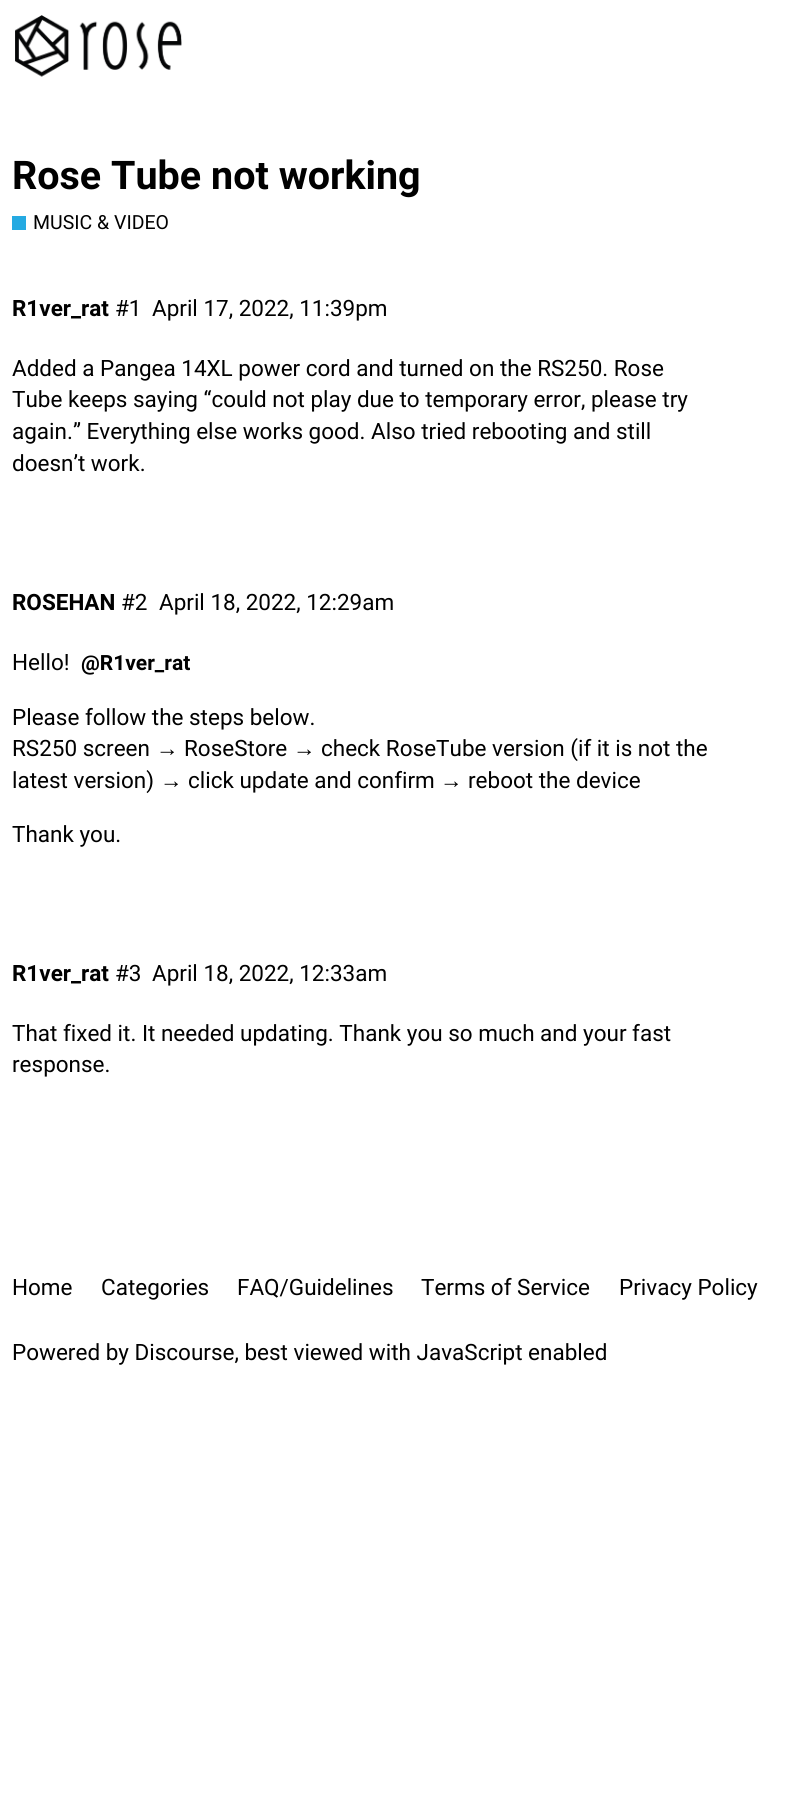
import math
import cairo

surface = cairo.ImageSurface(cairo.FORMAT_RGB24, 791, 1794)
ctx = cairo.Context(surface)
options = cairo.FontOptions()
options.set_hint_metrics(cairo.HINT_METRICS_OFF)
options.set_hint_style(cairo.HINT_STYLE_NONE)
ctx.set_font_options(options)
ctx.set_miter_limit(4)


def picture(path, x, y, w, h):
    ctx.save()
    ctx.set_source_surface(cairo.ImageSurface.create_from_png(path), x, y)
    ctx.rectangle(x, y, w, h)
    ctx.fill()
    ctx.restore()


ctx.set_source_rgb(1, 1, 1)
ctx.paint()
picture("img1.png", 15, 15, 167, 62)
ctx.select_font_face("Roboto", cairo.FONT_SLANT_NORMAL, cairo.FONT_WEIGHT_BOLD)
ctx.set_font_size(39.5)
ctx.set_source_rgb(0, 0, 0)
ctx.move_to(12, 189)
ctx.show_text("Rose Tube not working")
ctx.set_source_rgb(0.145, 0.667, 0.886)
ctx.rectangle(12, 216, 14, 14)
ctx.fill()
ctx.select_font_face("Roboto")
ctx.set_font_size(19.5)
ctx.set_source_rgb(0, 0, 0)
ctx.move_to(33, 229)
ctx.show_text("MUSIC & VIDEO")
ctx.select_font_face("Roboto", cairo.FONT_SLANT_NORMAL, cairo.FONT_WEIGHT_BOLD)
ctx.set_font_size(22.5)
ctx.move_to(12, 316)
ctx.show_text("R1ver_rat")
ctx.select_font_face("Roboto")
ctx.move_to(115, 316)
ctx.show_text("#1")
ctx.move_to(152, 316)
ctx.show_text("April 17, 2022, 11:39pm")
ctx.move_to(12, 376)
ctx.show_text("Added a Pangea 14XL power cord and turned on the RS250. Rose")
ctx.move_to(12, 407)
ctx.show_text("Tube keeps saying “could not play due to temporary error, please try")
ctx.move_to(12, 439)
ctx.show_text("again.” Everything else works good. Also tried rebooting and still")
ctx.move_to(12, 471)
ctx.show_text("doesn’t work.")
ctx.select_font_face("Roboto", cairo.FONT_SLANT_NORMAL, cairo.FONT_WEIGHT_BOLD)
ctx.move_to(12, 610)
ctx.show_text("ROSEHAN")
ctx.select_font_face("Roboto")
ctx.move_to(121, 610)
ctx.show_text("#2")
ctx.move_to(159, 610)
ctx.show_text("April 18, 2022, 12:29am")
ctx.move_to(12, 670)
ctx.show_text("Hello!")
ctx.select_font_face("Roboto", cairo.FONT_SLANT_NORMAL, cairo.FONT_WEIGHT_BOLD)
ctx.set_font_size(21)
ctx.move_to(81, 670)
ctx.show_text("@R1ver_rat")
ctx.select_font_face("Roboto")
ctx.set_font_size(22.5)
ctx.move_to(12, 725)
ctx.show_text("Please follow the steps below.")
ctx.move_to(12, 756)
ctx.show_text("RS250 screen")
ctx.select_font_face("Liberation Sans")
ctx.move_to(156, 756)
ctx.show_text("→")
ctx.select_font_face("Roboto")
ctx.move_to(184, 756)
ctx.show_text("RoseStore")
ctx.select_font_face("Liberation Sans")
ctx.move_to(293, 756)
ctx.show_text("→")
ctx.select_font_face("Roboto")
ctx.move_to(321, 756)
ctx.show_text("check RoseTube version (if it is not the")
ctx.move_to(12, 788)
ctx.show_text("latest version)")
ctx.select_font_face("Liberation Sans")
ctx.move_to(160, 788)
ctx.show_text("→")
ctx.select_font_face("Roboto")
ctx.move_to(188, 788)
ctx.show_text("click update and confirm")
ctx.select_font_face("Liberation Sans")
ctx.move_to(440, 788)
ctx.show_text("→")
ctx.select_font_face("Roboto")
ctx.move_to(468, 788)
ctx.show_text("reboot the device")
ctx.move_to(12, 842)
ctx.show_text("Thank you.")
ctx.select_font_face("Roboto", cairo.FONT_SLANT_NORMAL, cairo.FONT_WEIGHT_BOLD)
ctx.move_to(12, 981)
ctx.show_text("R1ver_rat")
ctx.select_font_face("Roboto")
ctx.move_to(115, 981)
ctx.show_text("#3")
ctx.move_to(152, 981)
ctx.show_text("April 18, 2022, 12:33am")
ctx.move_to(12, 1041)
ctx.show_text("That fixed it. It needed updating. Thank you so much and your fast")
ctx.move_to(12, 1072)
ctx.show_text("response.")
ctx.move_to(12, 1295)
ctx.show_text("Home")
ctx.move_to(101, 1295)
ctx.show_text("Categories")
ctx.move_to(237, 1295)
ctx.show_text("FAQ/Guidelines")
ctx.move_to(421, 1295)
ctx.show_text("Terms of Service")
ctx.move_to(619, 1295)
ctx.show_text("Privacy Policy")
ctx.move_to(12, 1360)
ctx.show_text("Powered by Discourse, best viewed with JavaScript enabled")
surface.write_to_png("page.png")
